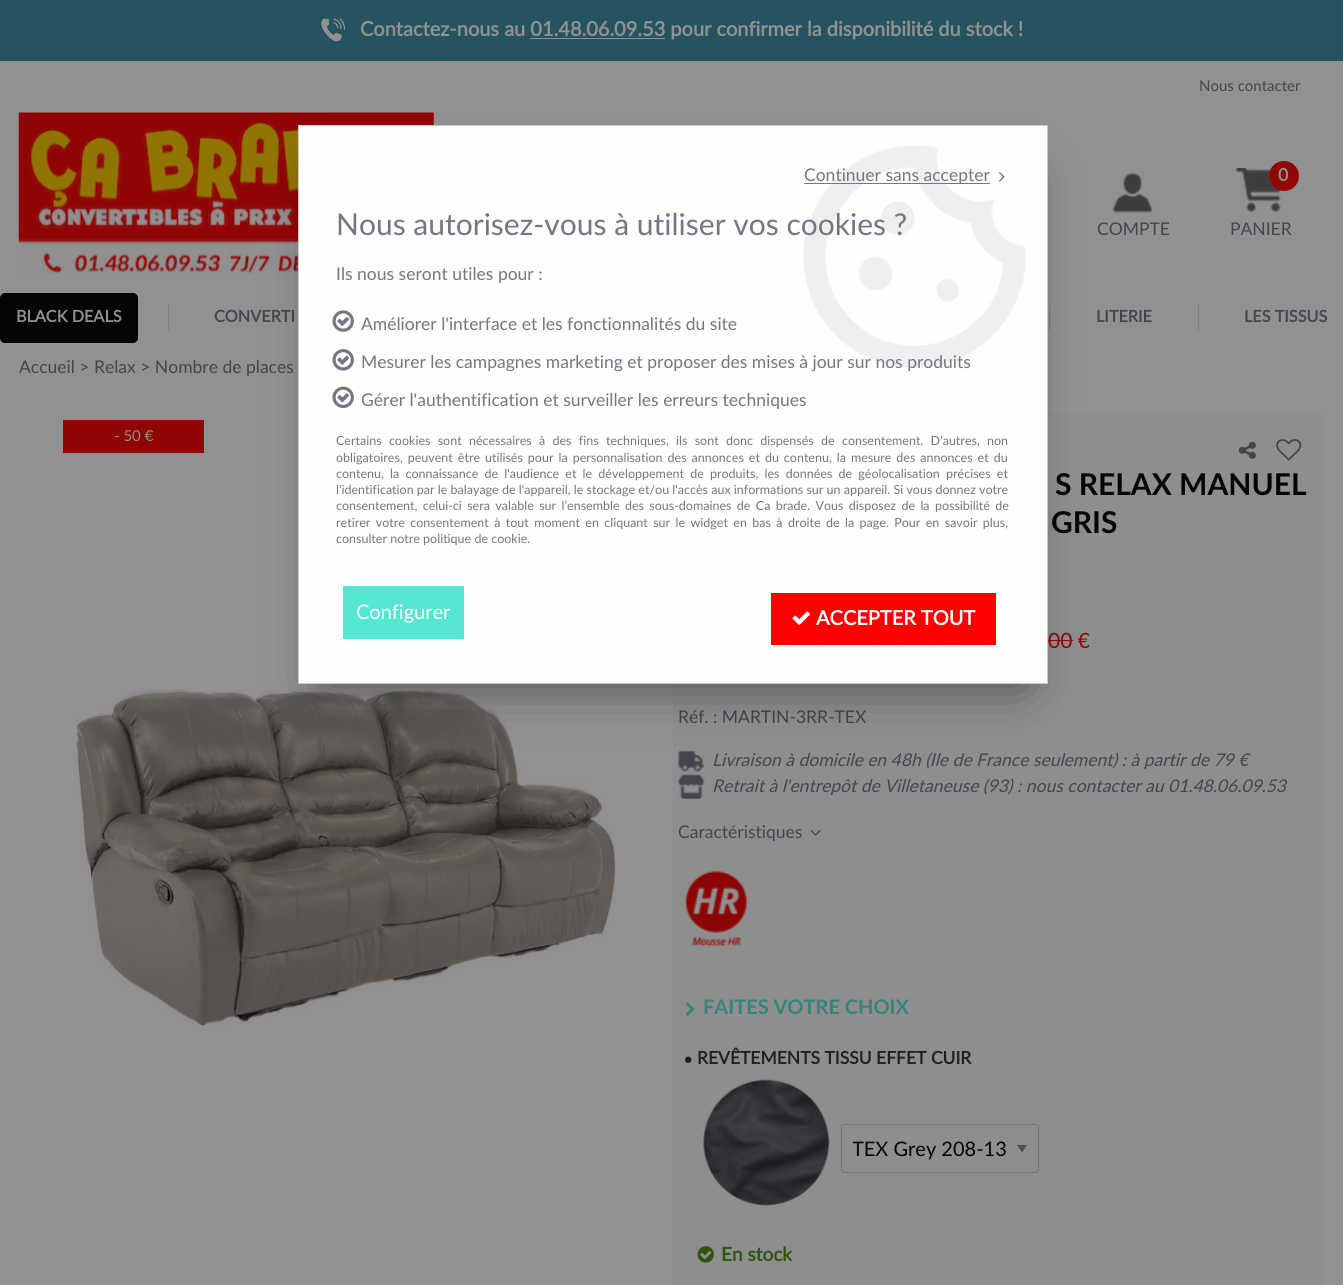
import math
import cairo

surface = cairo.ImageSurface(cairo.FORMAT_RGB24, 1343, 1285)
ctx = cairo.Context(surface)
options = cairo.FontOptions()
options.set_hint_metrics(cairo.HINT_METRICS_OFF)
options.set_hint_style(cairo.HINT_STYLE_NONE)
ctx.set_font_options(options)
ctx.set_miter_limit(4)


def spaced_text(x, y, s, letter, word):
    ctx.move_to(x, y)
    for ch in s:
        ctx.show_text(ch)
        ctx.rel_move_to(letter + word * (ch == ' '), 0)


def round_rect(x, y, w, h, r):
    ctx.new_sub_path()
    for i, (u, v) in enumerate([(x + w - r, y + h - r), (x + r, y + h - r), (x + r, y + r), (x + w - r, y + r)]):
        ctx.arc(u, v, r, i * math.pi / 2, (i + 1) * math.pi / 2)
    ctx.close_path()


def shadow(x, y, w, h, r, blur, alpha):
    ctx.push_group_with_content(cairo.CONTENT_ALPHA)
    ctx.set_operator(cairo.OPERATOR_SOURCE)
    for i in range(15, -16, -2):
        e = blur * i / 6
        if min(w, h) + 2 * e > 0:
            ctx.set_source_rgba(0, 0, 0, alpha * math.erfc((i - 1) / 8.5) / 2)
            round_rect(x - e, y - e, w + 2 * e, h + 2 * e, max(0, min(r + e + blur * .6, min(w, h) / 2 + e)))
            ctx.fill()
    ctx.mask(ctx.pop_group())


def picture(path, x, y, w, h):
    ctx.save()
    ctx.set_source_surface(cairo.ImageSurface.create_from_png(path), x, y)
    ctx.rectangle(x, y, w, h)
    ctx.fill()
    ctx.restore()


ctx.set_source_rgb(0.569, 0.569, 0.569)
ctx.paint()
ctx.set_source_rgb(0.145, 0.329, 0.376)
ctx.rectangle(0, 0, 1343, 61)
ctx.fill()
picture("img1.png", 321, 18, 24, 24)
ctx.select_font_face("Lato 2", cairo.FONT_SLANT_NORMAL, cairo.FONT_WEIGHT_BOLD)
ctx.set_font_size(20)
ctx.set_source_rgb(0.569, 0.569, 0.569)
ctx.move_to(360, 36)
ctx.show_text("Contactez-nous au 01.48.06.09.53 pour confirmer la disponibilité du stock !")
ctx.rectangle(530, 38, 135, 1)
ctx.fill()
ctx.select_font_face("Lato")
ctx.set_font_size(15)
ctx.set_source_rgb(0.271, 0.271, 0.302)
ctx.move_to(1199, 91)
ctx.show_text("Nous contacter")
picture("img2.png", 18, 112, 416, 162)
picture("img3.png", 1112, 173, 41, 40)
ctx.set_font_size(17.5)
ctx.move_to(1097, 235)
ctx.show_text("COMPTE")
picture("img4.png", 1235, 168, 47, 44)
ctx.set_source_rgb(0.569, 0.02, 0.02)
ctx.arc(1284, 176, 15, 0, 2 * math.pi)
ctx.fill()
ctx.select_font_face("Lato 2", cairo.FONT_SLANT_NORMAL, cairo.FONT_WEIGHT_BOLD)
ctx.set_source_rgb(0.569, 0.569, 0.569)
ctx.move_to(1278, 181)
ctx.show_text("0")
ctx.select_font_face("Lato")
ctx.set_source_rgb(0.271, 0.271, 0.302)
ctx.move_to(1230, 235)
ctx.show_text("PANIER")
ctx.set_source_rgb(0.02, 0.02, 0.02)
round_rect(0, 293, 138, 50, 5)
ctx.fill()
ctx.select_font_face("Lato 2", cairo.FONT_SLANT_NORMAL, cairo.FONT_WEIGHT_BOLD)
ctx.set_font_size(16.25)
ctx.set_source_rgb(0.569, 0.569, 0.569)
ctx.move_to(16, 322)
ctx.show_text("BLACK DEALS")
ctx.set_source_rgb(0.494, 0.494, 0.502)
ctx.rectangle(168, 305, 1, 25)
ctx.fill()
ctx.set_source_rgb(0.271, 0.271, 0.302)
ctx.move_to(214, 322)
ctx.show_text("CONVERTI")
ctx.set_source_rgb(0.494, 0.494, 0.502)
ctx.rectangle(1049, 305, 1, 25)
ctx.fill()
ctx.set_source_rgb(0.271, 0.271, 0.302)
ctx.move_to(1096, 322)
ctx.show_text("LITERIE")
ctx.set_source_rgb(0.494, 0.494, 0.502)
ctx.rectangle(1198, 305, 1, 25)
ctx.fill()
ctx.set_source_rgb(0.271, 0.271, 0.302)
ctx.move_to(1244, 322)
ctx.show_text("LES TISSUS")
ctx.select_font_face("Lato")
ctx.set_font_size(17.5)
ctx.move_to(19, 373)
ctx.show_text("Accueil > Relax > Nombre de places")
ctx.set_source_rgb(0.569, 0.02, 0.02)
ctx.rectangle(63, 420, 141, 33)
ctx.fill()
ctx.set_font_size(15)
ctx.set_source_rgb(0.569, 0.569, 0.569)
ctx.move_to(114, 441)
ctx.show_text("- 50 €")
picture("img5.png", 76, 689, 540, 337)
ctx.set_source_rgb(0.557, 0.557, 0.557)
ctx.rectangle(673, 414, 652, 871)
ctx.fill()
picture("img6.png", 1238, 441, 18, 18)
picture("img7.png", 1276, 439, 26, 22)
ctx.select_font_face("Lato", cairo.FONT_SLANT_NORMAL, cairo.FONT_WEIGHT_BOLD)
ctx.set_font_size(30)
ctx.set_source_rgb(0.02, 0.02, 0.02)
ctx.move_to(1055, 495)
ctx.show_text("S RELAX MANUEL")
ctx.move_to(1051, 533)
ctx.show_text("GRIS")
ctx.select_font_face("Lato")
ctx.set_font_size(21)
ctx.set_source_rgb(0.569, 0.02, 0.02)
ctx.move_to(1048, 648)
ctx.show_text("00 €")
ctx.rectangle(1048, 640, 25, 1)
ctx.fill()
ctx.set_font_size(17.5)
ctx.set_source_rgb(0.271, 0.271, 0.302)
ctx.move_to(678, 723)
ctx.show_text("Réf. : MARTIN-3RR-TEX")
picture("img8.png", 678, 750, 27, 22)
ctx.select_font_face("Lato", cairo.FONT_SLANT_ITALIC)
ctx.move_to(712, 766)
ctx.show_text("Livraison à domicile en 48h (Ile de France seulement) : à partir de 79 €")
picture("img9.png", 678, 774, 27, 25)
ctx.move_to(712, 792)
ctx.show_text("Retrait à l'entrepôt de Villetaneuse (93) : nous contacter au 01.48.06.09.53")
ctx.select_font_face("Lato")
ctx.move_to(678, 838)
ctx.show_text("Caractéristiques")
picture("img10.png", 810, 830, 11, 6)
picture("img11.png", 685, 870, 63, 77)
picture("img12.png", 685, 1002, 10, 14)
ctx.select_font_face("Lato", cairo.FONT_SLANT_NORMAL, cairo.FONT_WEIGHT_BOLD)
ctx.set_font_size(20)
ctx.set_source_rgb(0.204, 0.518, 0.471)
ctx.move_to(703, 1014)
ctx.show_text("FAITES VOTRE CHOIX")
picture("img13.png", 685, 1056, 7, 7)
ctx.select_font_face("Lato 2", cairo.FONT_SLANT_NORMAL, cairo.FONT_WEIGHT_BOLD)
ctx.set_font_size(17.5)
ctx.set_source_rgb(0.129, 0.129, 0.141)
ctx.move_to(697, 1064)
ctx.show_text("REVÊTEMENTS TISSU EFFET CUIR")
picture("img14.png", 703, 1079, 127, 127)
ctx.set_source_rgb(0.314, 0.314, 0.314)
ctx.new_path()
ctx.move_to(1017, 1145)
ctx.line_to(1027, 1145)
ctx.line_to(1022, 1152.5)
ctx.close_path()
ctx.fill()
round_rect(841.5, 1124.5, 197, 48, 3.5)
ctx.set_source_rgb(0.455, 0.455, 0.455)
ctx.set_line_width(1)
ctx.stroke()
ctx.save()
ctx.rectangle(853, 1135, 155, 30)
ctx.clip()
ctx.select_font_face("Lato")
ctx.set_font_size(20)
ctx.set_source_rgb(0.02, 0.02, 0.02)
ctx.move_to(852, 1156)
ctx.show_text("TEX Grey 208-13")
ctx.restore()
picture("img15.png", 697, 1246, 17, 17)
ctx.set_font_size(19)
ctx.set_source_rgb(0.184, 0.329, 0.055)
ctx.move_to(721, 1261)
ctx.show_text("En stock")
ctx.set_source_rgb(0, 0, 0)
shadow(323, 175, 700, 509, 0, 25, 0.5)
ctx.set_source_rgb(0.996, 0.996, 0.996)
ctx.rectangle(299, 126, 748, 557)
ctx.fill()
picture("img16.png", 803, 145, 223, 223)
ctx.rectangle(298.5, 125.5, 749, 558)
ctx.set_source_rgb(0.792, 0.792, 0.792)
ctx.stroke()
ctx.set_source_rgb(0.459, 0.459, 0.518)
ctx.rectangle(804, 183, 186, 1)
ctx.fill()
ctx.select_font_face("Lato")
ctx.set_font_size(17.5)
ctx.move_to(804, 181)
ctx.show_text("Continuer sans accepter")
picture("img17.png", 998, 172, 7, 10)
ctx.set_font_size(30)
ctx.move_to(336, 235)
ctx.show_text("Nous autorisez-vous à utiliser vos cookies ?")
ctx.set_font_size(17.5)
ctx.move_to(336, 280)
ctx.show_text("Ils nous seront utiles pour :")
picture("img18.png", 332, 310, 22, 22)
ctx.move_to(361, 330)
ctx.show_text("Améliorer l'interface et les fonctionnalités du site")
picture("img19.png", 332, 349, 22, 22)
ctx.move_to(361, 368)
ctx.show_text("Mesurer les campagnes marketing et proposer des mises à jour sur nos produits")
picture("img20.png", 332, 386, 22, 22)
ctx.move_to(361, 406)
ctx.show_text("Gérer l'authentification et surveiller les erreurs techniques")
ctx.set_font_size(12.5)
spaced_text(336, 445, "Certains cookies sont nécessaires à des fins techniques, ils sont donc dispensés de consentement. D'autres, non", 0, 4.1)
spaced_text(336, 462, "obligatoires, peuvent être utilisés pour la personnalisation des annonces et du contenu, la mesure des annonces et du", 0, 1.8)
spaced_text(336, 478, "contenu, la connaissance de l'audience et le développement de produits, les données de géolocalisation précises et", 0, 3)
ctx.move_to(336, 494)
ctx.show_text("l'identification par le balayage de l'appareil, le stockage et/ou l'accès aux informations sur un appareil. Si vous donnez votre")
spaced_text(336, 510, "consentement, celui-ci sera valable sur l’ensemble des sous-domaines de Ca brade. Vous disposez de la possibilité de", 0, 2.2)
spaced_text(336, 527, "retirer votre consentement à tout moment en cliquant sur le widget en bas à droite de la page. Pour en savoir plus,", 0, 2.2)
ctx.move_to(336, 543)
ctx.show_text("consulter notre politique de cookie.")
ctx.set_source_rgb(0.337, 0.906, 0.824)
ctx.rectangle(343, 586, 121, 53)
ctx.fill()
ctx.set_font_size(20)
ctx.set_source_rgb(1, 1, 1)
ctx.move_to(356, 619)
ctx.show_text("Configurer")
ctx.set_source_rgb(1, 0, 0)
ctx.rectangle(771, 593, 225, 52)
ctx.fill()
picture("img21.png", 792, 611, 18, 14)
ctx.select_font_face("Lato 2", cairo.FONT_SLANT_NORMAL, cairo.FONT_WEIGHT_BOLD)
ctx.set_source_rgb(1, 1, 1)
ctx.move_to(816, 625)
ctx.show_text("ACCEPTER TOUT")
surface.write_to_png("page.png")
